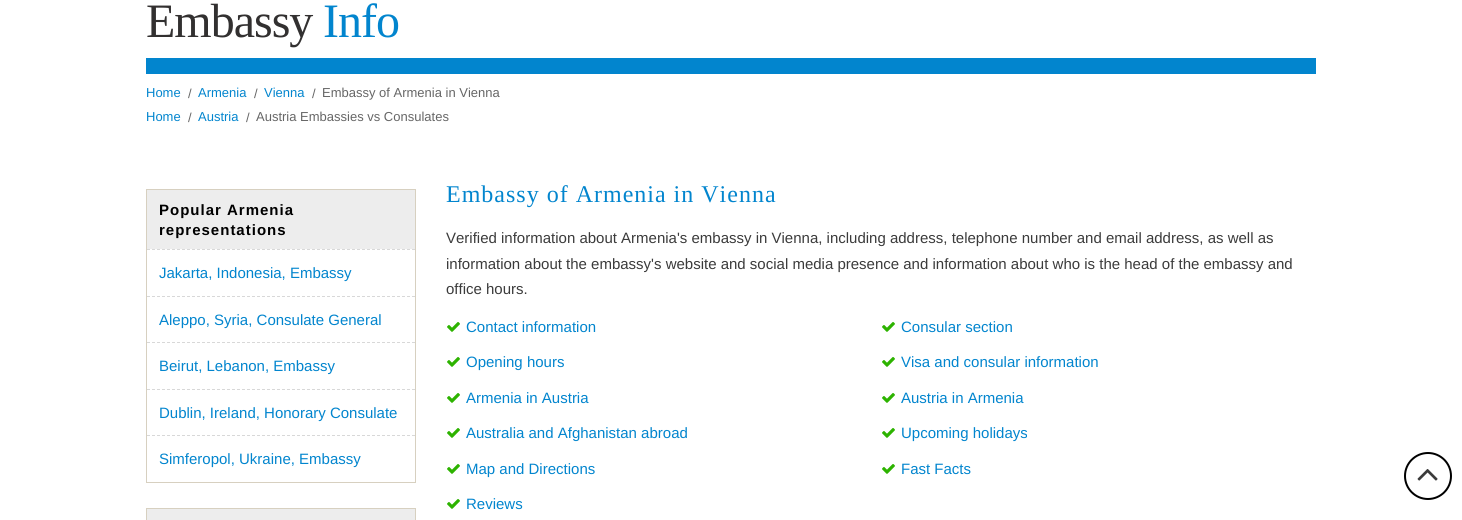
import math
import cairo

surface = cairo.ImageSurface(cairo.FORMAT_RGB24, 1462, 520)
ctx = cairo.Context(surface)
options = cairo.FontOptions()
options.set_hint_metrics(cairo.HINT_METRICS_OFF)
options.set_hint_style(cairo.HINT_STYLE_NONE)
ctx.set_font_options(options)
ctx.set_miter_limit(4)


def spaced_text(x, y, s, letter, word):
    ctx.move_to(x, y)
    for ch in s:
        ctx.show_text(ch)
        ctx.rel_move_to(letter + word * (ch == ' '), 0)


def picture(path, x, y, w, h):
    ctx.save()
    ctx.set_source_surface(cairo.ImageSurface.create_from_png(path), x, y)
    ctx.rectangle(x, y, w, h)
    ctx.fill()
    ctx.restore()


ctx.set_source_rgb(1, 1, 1)
ctx.paint()
ctx.set_source_rgb(0.008, 0.522, 0.808)
ctx.rectangle(146, 58, 1170, 16)
ctx.fill()
ctx.select_font_face("Liberation Serif")
ctx.set_font_size(48)
ctx.set_source_rgb(0.196, 0.188, 0.188)
spaced_text(146, 37, "Embassy", -1, 0)
ctx.set_source_rgb(0.008, 0.522, 0.808)
spaced_text(323, 37, "Info", -1, 0)
ctx.select_font_face("Liberation Sans")
ctx.set_font_size(13)
ctx.move_to(146, 97)
ctx.show_text("Home")
ctx.set_source_rgb(0.4, 0.4, 0.4)
ctx.move_to(188, 98)
ctx.show_text("/")
ctx.set_source_rgb(0.008, 0.522, 0.808)
ctx.move_to(198, 97)
ctx.show_text("Armenia")
ctx.set_source_rgb(0.4, 0.4, 0.4)
ctx.move_to(254, 98)
ctx.show_text("/")
ctx.set_source_rgb(0.008, 0.522, 0.808)
ctx.move_to(264, 97)
ctx.show_text("Vienna")
ctx.set_source_rgb(0.4, 0.4, 0.4)
ctx.move_to(312, 98)
ctx.show_text("/")
ctx.move_to(322, 97)
ctx.show_text("Embassy of Armenia in Vienna")
ctx.set_source_rgb(0.008, 0.522, 0.808)
ctx.move_to(146, 121)
ctx.show_text("Home")
ctx.set_source_rgb(0.4, 0.4, 0.4)
ctx.move_to(188, 122)
ctx.show_text("/")
ctx.set_source_rgb(0.008, 0.522, 0.808)
ctx.move_to(198, 121)
ctx.show_text("Austria")
ctx.set_source_rgb(0.4, 0.4, 0.4)
ctx.move_to(246, 122)
ctx.show_text("/")
ctx.move_to(256, 121)
ctx.show_text("Austria Embassies vs Consulates")
ctx.rectangle(146.5, 189.5, 269, 293)
ctx.set_source_rgb(0.843, 0.816, 0.753)
ctx.set_line_width(1)
ctx.stroke()
ctx.set_source_rgb(0.929, 0.929, 0.929)
ctx.rectangle(147, 190, 268, 59)
ctx.fill()
ctx.select_font_face("Liberation Sans", cairo.FONT_SLANT_NORMAL, cairo.FONT_WEIGHT_BOLD)
ctx.set_font_size(15)
ctx.set_source_rgb(0, 0, 0)
spaced_text(159, 215, "Popular Armenia", 1, 0)
spaced_text(159, 235, "representations", 1, 0)
ctx.new_path()
ctx.move_to(147, 249.5)
ctx.line_to(415, 249.5)
ctx.set_source_rgb(0.847, 0.847, 0.847)
ctx.set_dash([3, 2])
ctx.stroke()
ctx.select_font_face("Liberation Sans")
ctx.set_source_rgb(0.008, 0.522, 0.808)
ctx.move_to(159, 278)
ctx.show_text("Jakarta, Indonesia, Embassy")
ctx.new_path()
ctx.move_to(147, 296.5)
ctx.line_to(415, 296.5)
ctx.set_source_rgb(0.847, 0.847, 0.847)
ctx.stroke()
ctx.set_source_rgb(0.008, 0.522, 0.808)
ctx.move_to(159, 325)
ctx.show_text("Aleppo, Syria, Consulate General")
ctx.new_path()
ctx.move_to(147, 342.5)
ctx.line_to(415, 342.5)
ctx.set_source_rgb(0.847, 0.847, 0.847)
ctx.stroke()
ctx.set_source_rgb(0.008, 0.522, 0.808)
ctx.move_to(159, 371)
ctx.show_text("Beirut, Lebanon, Embassy")
ctx.new_path()
ctx.move_to(147, 389.5)
ctx.line_to(415, 389.5)
ctx.set_source_rgb(0.847, 0.847, 0.847)
ctx.stroke()
ctx.set_source_rgb(0.008, 0.522, 0.808)
ctx.move_to(159, 418)
ctx.show_text("Dublin, Ireland, Honorary Consulate")
ctx.new_path()
ctx.move_to(147, 435.5)
ctx.line_to(415, 435.5)
ctx.set_source_rgb(0.847, 0.847, 0.847)
ctx.stroke()
ctx.set_source_rgb(0.008, 0.522, 0.808)
ctx.move_to(159, 464)
ctx.show_text("Simferopol, Ukraine, Embassy")
ctx.rectangle(146.5, 508.5, 269, 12)
ctx.set_source_rgb(0.843, 0.816, 0.753)
ctx.set_dash([])
ctx.stroke()
ctx.set_source_rgb(0.929, 0.929, 0.929)
ctx.rectangle(147, 509, 268, 11)
ctx.fill()
ctx.select_font_face("Liberation Serif")
ctx.set_font_size(24)
ctx.set_source_rgb(0.008, 0.522, 0.808)
spaced_text(446, 202, "Embassy of Armenia in Vienna", 1, 0)
ctx.select_font_face("Liberation Sans")
ctx.set_font_size(15)
ctx.set_source_rgb(0.231, 0.231, 0.231)
ctx.move_to(446, 243)
ctx.show_text("Verified information about Armenia's embassy in Vienna, including address, telephone number and email address, as well as")
ctx.move_to(446, 269)
ctx.show_text("information about the embassy's website and social media presence and information about who is the head of the embassy and")
ctx.move_to(446, 294)
ctx.show_text("office hours.")
picture("img1.png", 447, 322, 13, 10)
ctx.set_source_rgb(0.008, 0.522, 0.808)
ctx.move_to(466, 332)
ctx.show_text("Contact information")
picture("img1.png", 882, 322, 13, 10)
ctx.move_to(901, 332)
ctx.show_text("Consular section")
picture("img1.png", 447, 357, 13, 10)
ctx.move_to(466, 367)
ctx.show_text("Opening hours")
picture("img1.png", 882, 357, 13, 10)
ctx.move_to(901, 367)
ctx.show_text("Visa and consular information")
picture("img1.png", 447, 393, 13, 10)
ctx.move_to(466, 403)
ctx.show_text("Armenia in Austria")
picture("img1.png", 882, 393, 13, 10)
ctx.move_to(901, 403)
ctx.show_text("Austria in Armenia")
picture("img1.png", 447, 428, 13, 10)
ctx.move_to(466, 438)
ctx.show_text("Australia and Afghanistan abroad")
picture("img1.png", 882, 428, 13, 10)
ctx.move_to(901, 438)
ctx.show_text("Upcoming holidays")
picture("img1.png", 447, 464, 13, 10)
ctx.move_to(466, 474)
ctx.show_text("Map and Directions")
picture("img1.png", 882, 464, 13, 10)
ctx.move_to(901, 474)
ctx.show_text("Fast Facts")
picture("img1.png", 447, 499, 13, 10)
ctx.move_to(466, 509)
ctx.show_text("Reviews")
ctx.new_path()
ctx.arc(1428, 476, 23, 0, 2 * math.pi)
ctx.set_source_rgb(0, 0, 0)
ctx.set_line_width(2)
ctx.stroke()
picture("img2.png", 1417, 469, 21, 12)
surface.write_to_png("page.png")
